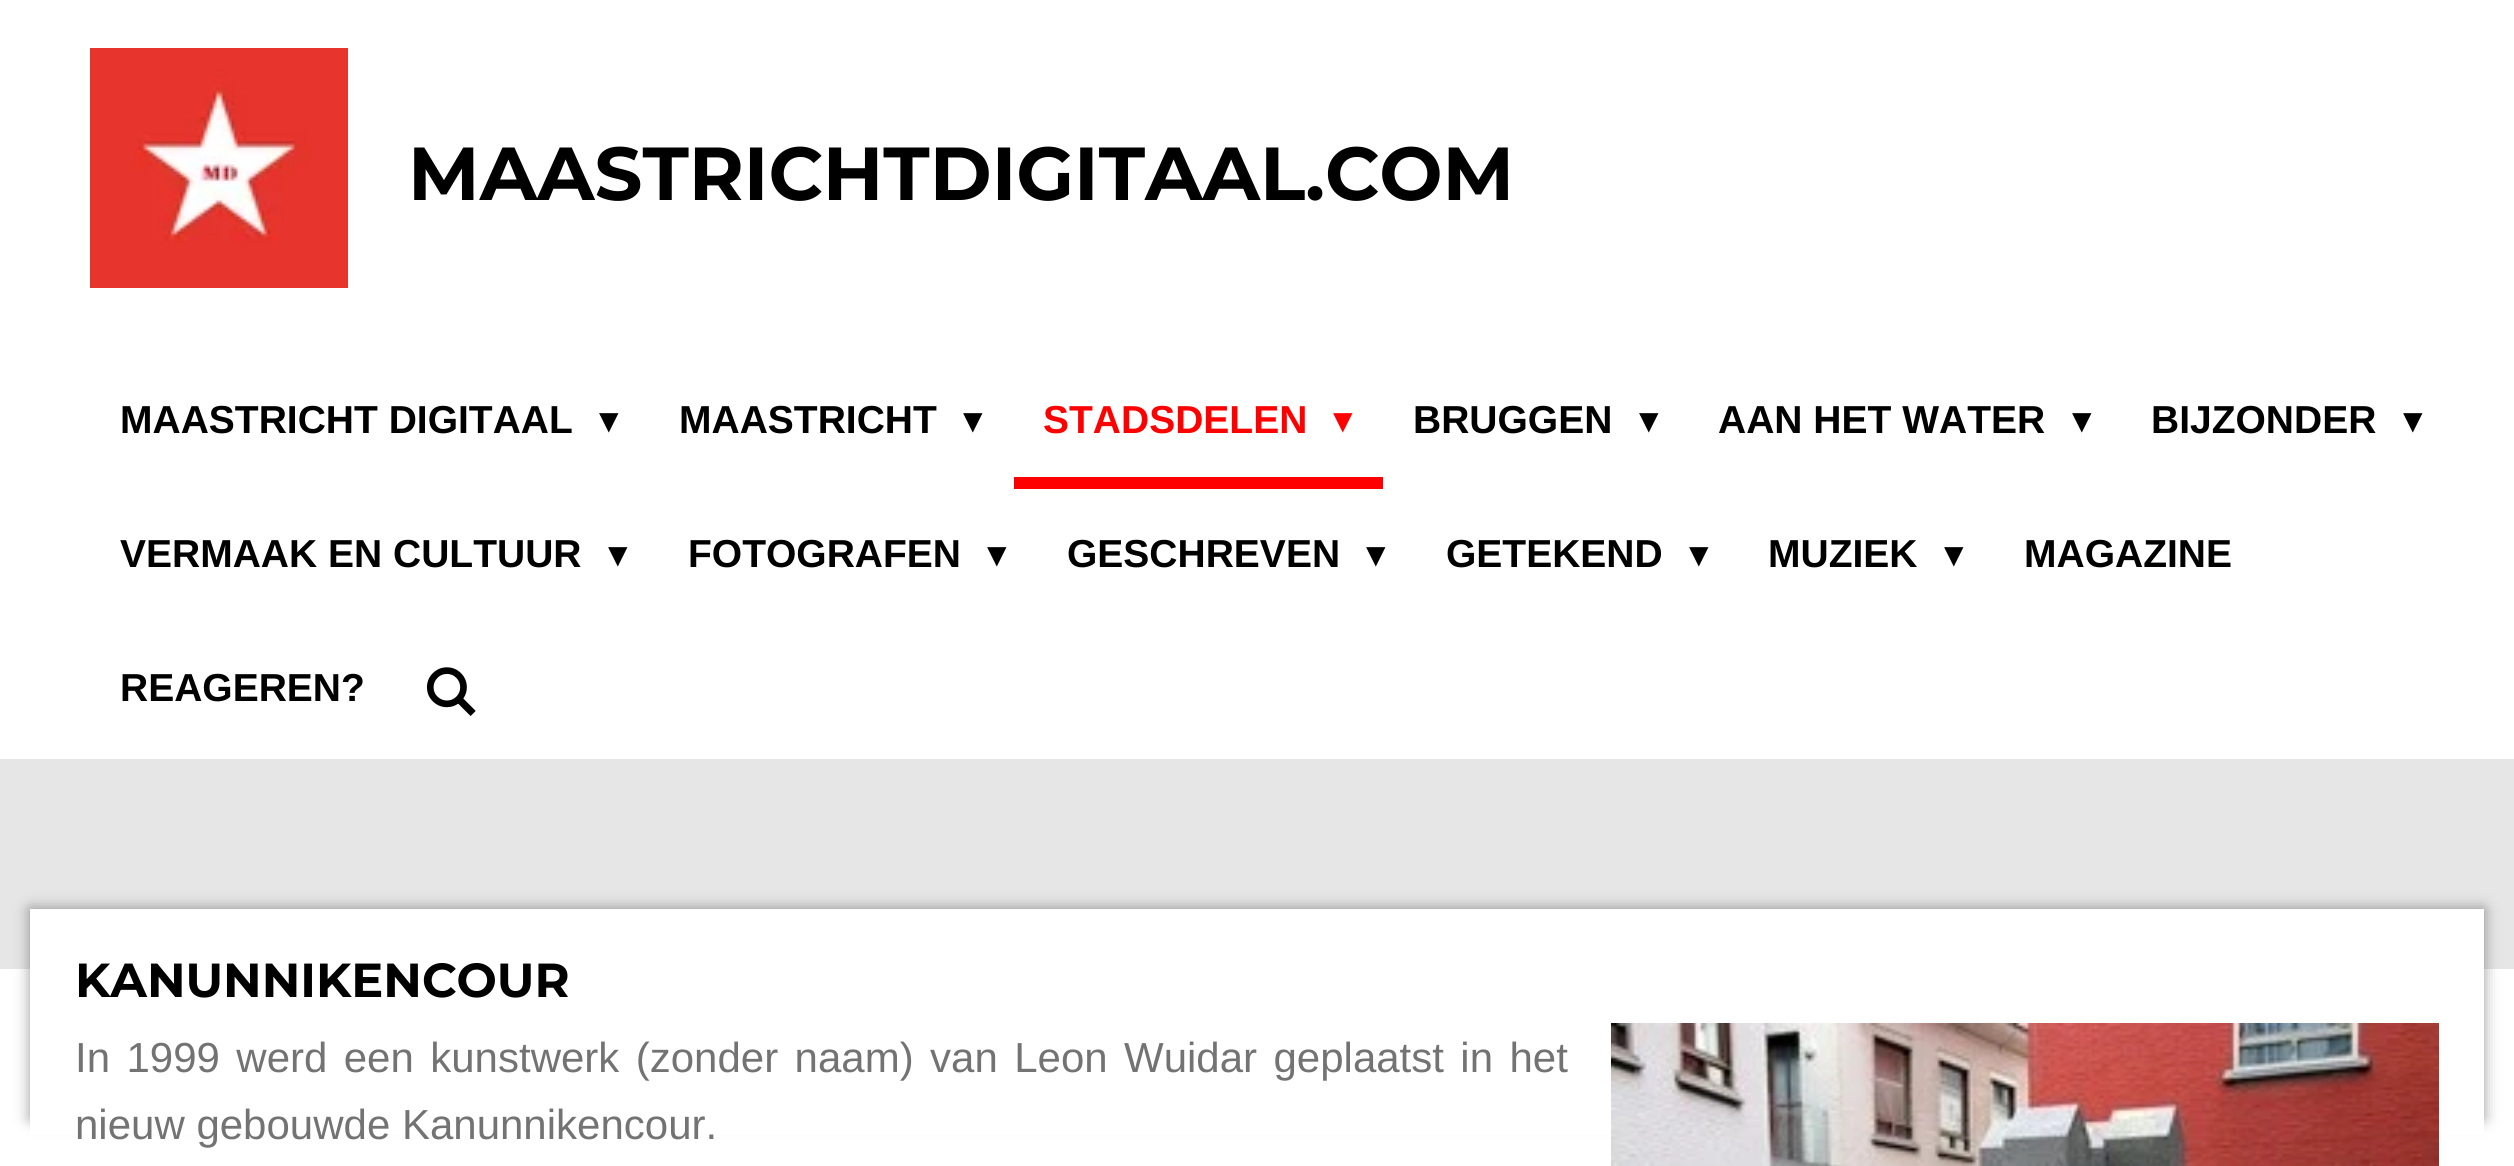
import math
import cairo

surface = cairo.ImageSurface(cairo.FORMAT_RGB24, 2514, 1166)
ctx = cairo.Context(surface)
options = cairo.FontOptions()
options.set_hint_metrics(cairo.HINT_METRICS_OFF)
options.set_hint_style(cairo.HINT_STYLE_NONE)
ctx.set_font_options(options)
ctx.set_miter_limit(4)


def spaced_text(x, y, s, letter, word):
    ctx.move_to(x, y)
    for ch in s:
        ctx.show_text(ch)
        ctx.rel_move_to(letter + word * (ch == ' '), 0)


def round_rect(x, y, w, h, r):
    ctx.new_sub_path()
    for i, (u, v) in enumerate([(x + w - r, y + h - r), (x + r, y + h - r), (x + r, y + r), (x + w - r, y + r)]):
        ctx.arc(u, v, r, i * math.pi / 2, (i + 1) * math.pi / 2)
    ctx.close_path()


def shadow(x, y, w, h, r, blur, alpha):
    ctx.push_group_with_content(cairo.CONTENT_ALPHA)
    ctx.set_operator(cairo.OPERATOR_SOURCE)
    for i in range(15, -16, -2):
        e = blur * i / 6
        if min(w, h) + 2 * e > 0:
            ctx.set_source_rgba(0, 0, 0, alpha * math.erfc((i - 1) / 8.5) / 2)
            round_rect(x - e, y - e, w + 2 * e, h + 2 * e, max(0, min(r + e + blur * .6, min(w, h) / 2 + e)))
            ctx.fill()
    ctx.mask(ctx.pop_group())


def picture(path, x, y, w, h):
    ctx.save()
    ctx.set_source_surface(cairo.ImageSurface.create_from_png(path), x, y)
    ctx.rectangle(x, y, w, h)
    ctx.fill()
    ctx.restore()


ctx.set_source_rgb(1, 1, 1)
ctx.paint()
picture("img1.png", 90, 48, 258, 240)
ctx.select_font_face("Montserrat", cairo.FONT_SLANT_NORMAL, cairo.FONT_WEIGHT_BOLD)
ctx.set_font_size(75)
ctx.set_source_rgb(0, 0, 0)
ctx.move_to(408, 200)
ctx.show_text("MAASTRICHTDIGITAAL.COM")
ctx.select_font_face("Liberation Sans", cairo.FONT_SLANT_NORMAL, cairo.FONT_WEIGHT_BOLD)
ctx.set_font_size(39)
ctx.move_to(120, 433)
ctx.show_text("MAASTRICHT DIGITAAL")
ctx.select_font_face("DejaVu Sans")
ctx.move_to(599, 433)
ctx.show_text("▾")
ctx.select_font_face("Liberation Sans", cairo.FONT_SLANT_NORMAL, cairo.FONT_WEIGHT_BOLD)
ctx.move_to(679, 433)
ctx.show_text("MAASTRICHT")
ctx.select_font_face("DejaVu Sans")
ctx.move_to(963, 433)
ctx.show_text("▾")
ctx.set_source_rgb(1, 0, 0)
ctx.rectangle(1014, 477, 369, 12)
ctx.fill()
ctx.select_font_face("Liberation Sans", cairo.FONT_SLANT_NORMAL, cairo.FONT_WEIGHT_BOLD)
ctx.move_to(1043, 433)
ctx.show_text("STADSDELEN")
ctx.select_font_face("DejaVu Sans")
ctx.move_to(1333, 433)
ctx.show_text("▾")
ctx.select_font_face("Liberation Sans", cairo.FONT_SLANT_NORMAL, cairo.FONT_WEIGHT_BOLD)
ctx.set_source_rgb(0, 0, 0)
ctx.move_to(1413, 433)
ctx.show_text("BRUGGEN")
ctx.select_font_face("DejaVu Sans")
ctx.move_to(1639, 433)
ctx.show_text("▾")
ctx.select_font_face("Liberation Sans", cairo.FONT_SLANT_NORMAL, cairo.FONT_WEIGHT_BOLD)
ctx.move_to(1718, 433)
ctx.show_text("AAN HET WATER")
ctx.select_font_face("DejaVu Sans")
ctx.move_to(2072, 433)
ctx.show_text("▾")
ctx.select_font_face("Liberation Sans", cairo.FONT_SLANT_NORMAL, cairo.FONT_WEIGHT_BOLD)
ctx.move_to(2151, 433)
ctx.show_text("BIJZONDER")
ctx.select_font_face("DejaVu Sans")
ctx.move_to(2403, 433)
ctx.show_text("▾")
ctx.select_font_face("Liberation Sans", cairo.FONT_SLANT_NORMAL, cairo.FONT_WEIGHT_BOLD)
ctx.move_to(120, 567)
ctx.show_text("VERMAAK EN CULTUUR")
ctx.select_font_face("DejaVu Sans")
ctx.move_to(608, 567)
ctx.show_text("▾")
ctx.select_font_face("Liberation Sans", cairo.FONT_SLANT_NORMAL, cairo.FONT_WEIGHT_BOLD)
ctx.move_to(688, 567)
ctx.show_text("FOTOGRAFEN")
ctx.select_font_face("DejaVu Sans")
ctx.move_to(987, 567)
ctx.show_text("▾")
ctx.select_font_face("Liberation Sans", cairo.FONT_SLANT_NORMAL, cairo.FONT_WEIGHT_BOLD)
ctx.move_to(1067, 567)
ctx.show_text("GESCHREVEN")
ctx.select_font_face("DejaVu Sans")
ctx.move_to(1366, 567)
ctx.show_text("▾")
ctx.select_font_face("Liberation Sans", cairo.FONT_SLANT_NORMAL, cairo.FONT_WEIGHT_BOLD)
ctx.move_to(1446, 567)
ctx.show_text("GETEKEND")
ctx.select_font_face("DejaVu Sans")
ctx.move_to(1689, 567)
ctx.show_text("▾")
ctx.select_font_face("Liberation Sans", cairo.FONT_SLANT_NORMAL, cairo.FONT_WEIGHT_BOLD)
ctx.move_to(1768, 567)
ctx.show_text("MUZIEK")
ctx.select_font_face("DejaVu Sans")
ctx.move_to(1944, 567)
ctx.show_text("▾")
ctx.select_font_face("Liberation Sans", cairo.FONT_SLANT_NORMAL, cairo.FONT_WEIGHT_BOLD)
ctx.move_to(2024, 567)
ctx.show_text("MAGAZINE")
ctx.move_to(120, 701)
ctx.show_text("REAGEREN?")
picture("img2.png", 426, 667, 50, 49)
ctx.set_source_rgb(0.902, 0.902, 0.902)
ctx.rectangle(0, 759, 2514, 210)
ctx.fill()
ctx.set_source_rgb(0, 0, 0)
shadow(30, 909, 2454, 210, 0, 7.5, 0.4)
ctx.set_source_rgb(1, 1, 1)
ctx.rectangle(30, 909, 2454, 225)
ctx.fill()
ctx.select_font_face("Montserrat", cairo.FONT_SLANT_NORMAL, cairo.FONT_WEIGHT_BOLD)
ctx.set_font_size(47.75)
ctx.set_source_rgb(0, 0, 0)
ctx.move_to(75, 997)
ctx.show_text("KANUNNIKENCOUR")
ctx.select_font_face("Liberation Sans")
ctx.set_font_size(42)
ctx.set_source_rgb(0.451, 0.451, 0.451)
spaced_text(75, 1072, "In 1999 werd een kunstwerk (zonder naam) van Leon Wuidar geplaatst in het", 0, 4.75)
ctx.move_to(75, 1139)
ctx.show_text("nieuw gebouwde Kanunnikencour.")
picture("img3.png", 1611, 1023, 828, 143)
surface.write_to_png("page.png")
